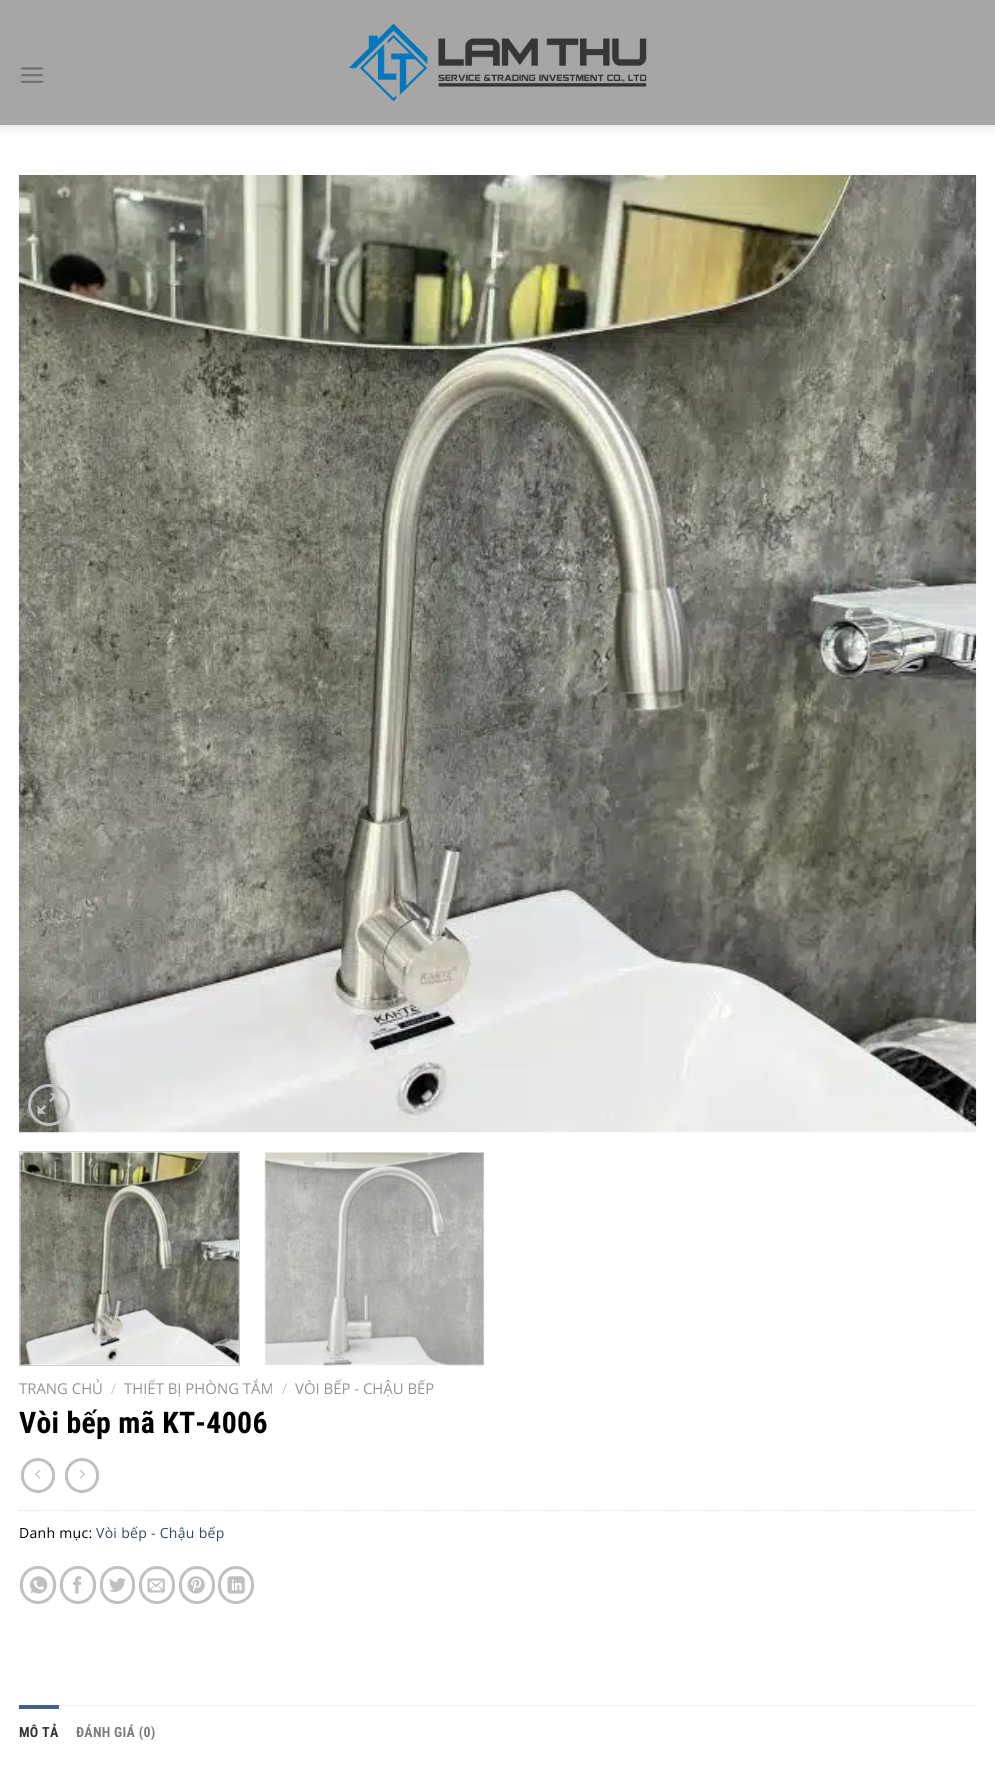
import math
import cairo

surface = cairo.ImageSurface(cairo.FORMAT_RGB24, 995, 1780)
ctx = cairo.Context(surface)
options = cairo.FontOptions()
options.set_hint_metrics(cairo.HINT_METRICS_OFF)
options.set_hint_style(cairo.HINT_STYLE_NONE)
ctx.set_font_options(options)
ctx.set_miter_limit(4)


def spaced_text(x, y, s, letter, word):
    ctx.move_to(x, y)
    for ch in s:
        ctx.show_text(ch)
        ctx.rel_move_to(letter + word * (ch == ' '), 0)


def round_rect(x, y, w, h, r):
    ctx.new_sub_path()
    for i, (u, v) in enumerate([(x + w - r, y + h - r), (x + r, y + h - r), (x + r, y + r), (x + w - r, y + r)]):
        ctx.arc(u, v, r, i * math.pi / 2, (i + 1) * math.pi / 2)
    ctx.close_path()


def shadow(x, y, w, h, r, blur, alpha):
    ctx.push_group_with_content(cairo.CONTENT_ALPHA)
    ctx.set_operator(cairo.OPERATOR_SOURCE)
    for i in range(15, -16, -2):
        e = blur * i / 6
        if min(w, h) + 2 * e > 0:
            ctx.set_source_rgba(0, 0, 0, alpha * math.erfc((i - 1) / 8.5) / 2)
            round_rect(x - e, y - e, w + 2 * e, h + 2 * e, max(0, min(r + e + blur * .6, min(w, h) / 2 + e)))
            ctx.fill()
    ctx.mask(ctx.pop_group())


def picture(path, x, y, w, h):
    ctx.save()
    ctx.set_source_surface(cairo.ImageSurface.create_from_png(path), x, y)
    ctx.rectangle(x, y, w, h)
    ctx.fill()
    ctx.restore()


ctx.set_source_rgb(1, 1, 1)
ctx.paint()
ctx.set_source_rgb(0, 0, 0)
shadow(1, 1, 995, 125, 0, 6, 0.15)
ctx.set_source_rgb(0.651, 0.651, 0.651)
ctx.rectangle(0, 0, 995, 125)
ctx.fill()
picture("img1.png", 21, 67, 23, 16)
picture("img2.png", 348, 23, 299, 79)
picture("img3.png", 18, 175, 959, 958)
ctx.arc(49, 1105, 19.5, 0, 2 * math.pi)
ctx.set_source_rgb(0.753, 0.753, 0.753)
ctx.set_line_width(3)
ctx.stroke()
picture("img4.png", 37, 1093, 21, 21)
ctx.rectangle(19.5, 1151.5, 220, 214)
ctx.set_source_rgb(0.8, 0.8, 0.8)
ctx.set_line_width(1)
ctx.stroke()
picture("img5.png", 19, 1152, 220, 214)
picture("img6.png", 264, 1152, 220, 214)
ctx.select_font_face("Open Sans")
ctx.set_font_size(14.9)
ctx.set_source_rgb(0.58, 0.58, 0.58)
ctx.move_to(19, 1394)
ctx.show_text("TRANG CHỦ")
ctx.select_font_face("Open Sans Light")
ctx.set_source_rgb(0.698, 0.698, 0.698)
ctx.move_to(111, 1394)
ctx.show_text("/")
ctx.select_font_face("Open Sans")
ctx.set_source_rgb(0.58, 0.58, 0.58)
ctx.move_to(124, 1394)
ctx.show_text("THIẾT BỊ PHÒNG TẮM")
ctx.select_font_face("Open Sans Light")
ctx.set_source_rgb(0.698, 0.698, 0.698)
ctx.move_to(282, 1394)
ctx.show_text("/")
ctx.select_font_face("Open Sans")
ctx.set_source_rgb(0.58, 0.58, 0.58)
ctx.move_to(295, 1394)
ctx.show_text("VÒI BẾP - CHẬU BẾP")
ctx.select_font_face("Roboto Condensed", cairo.FONT_SLANT_NORMAL, cairo.FONT_WEIGHT_BOLD)
ctx.set_font_size(29.75)
ctx.set_source_rgb(0, 0, 0)
spaced_text(19, 1433, "Vòi bếp mã KT-4006", 0.3, 0)
round_rect(22.5, 1459.5, 31, 32, 15.5)
ctx.set_source_rgb(0.753, 0.753, 0.753)
ctx.set_line_width(3)
ctx.stroke()
picture("img7.png", 35, 1469, 6, 10)
round_rect(66.5, 1459.5, 31, 32, 15.5)
ctx.stroke()
picture("img8.png", 79, 1469, 6, 10)
ctx.new_path()
ctx.move_to(19, 1510.5)
ctx.line_to(976, 1510.5)
ctx.set_source_rgb(0.867, 0.867, 0.867)
ctx.set_line_width(1.2)
ctx.set_dash([1.25, 1.25])
ctx.stroke()
ctx.select_font_face("Open Sans")
ctx.set_font_size(14)
ctx.set_source_rgb(0, 0, 0)
spaced_text(19, 1538, "Danh mục:", 0.3, 0)
ctx.set_source_rgb(0.2, 0.282, 0.384)
spaced_text(96, 1538, "Vòi bếp - Chậu bếp", 0.3, 0)
round_rect(21.5, 1567.5, 33, 35, 16.5)
ctx.set_source_rgb(0.753, 0.753, 0.753)
ctx.set_line_width(3)
ctx.set_dash([])
ctx.stroke()
picture("img9.png", 30, 1576, 18, 18)
round_rect(61.5, 1567.5, 33, 35, 16.5)
ctx.stroke()
picture("img10.png", 73, 1576, 9, 18)
round_rect(101.5, 1567.5, 32, 35, 16)
ctx.stroke()
picture("img11.png", 109, 1578, 17, 14)
round_rect(140.5, 1567.5, 33, 35, 16.5)
ctx.stroke()
picture("img12.png", 147, 1578, 18, 15)
round_rect(180.5, 1567.5, 33, 35, 16.5)
ctx.stroke()
picture("img13.png", 187, 1576, 18, 18)
round_rect(219.5, 1567.5, 33, 35, 16.5)
ctx.stroke()
picture("img14.png", 227, 1576, 18, 18)
ctx.set_source_rgb(0.925, 0.925, 0.925)
ctx.rectangle(59, 1705, 917, 1)
ctx.fill()
ctx.set_source_rgb(0.267, 0.376, 0.518)
ctx.rectangle(19, 1705, 40, 4)
ctx.fill()
ctx.select_font_face("Roboto Condensed", cairo.FONT_SLANT_NORMAL, cairo.FONT_WEIGHT_BOLD)
ctx.set_source_rgb(0.208, 0.208, 0.208)
spaced_text(19, 1737, "MÔ TẢ", 0.25, 0)
ctx.set_source_rgb(0.49, 0.49, 0.49)
spaced_text(76, 1737, "ĐÁNH GIÁ (0)", 0.25, 0)
surface.write_to_png("page.png")
